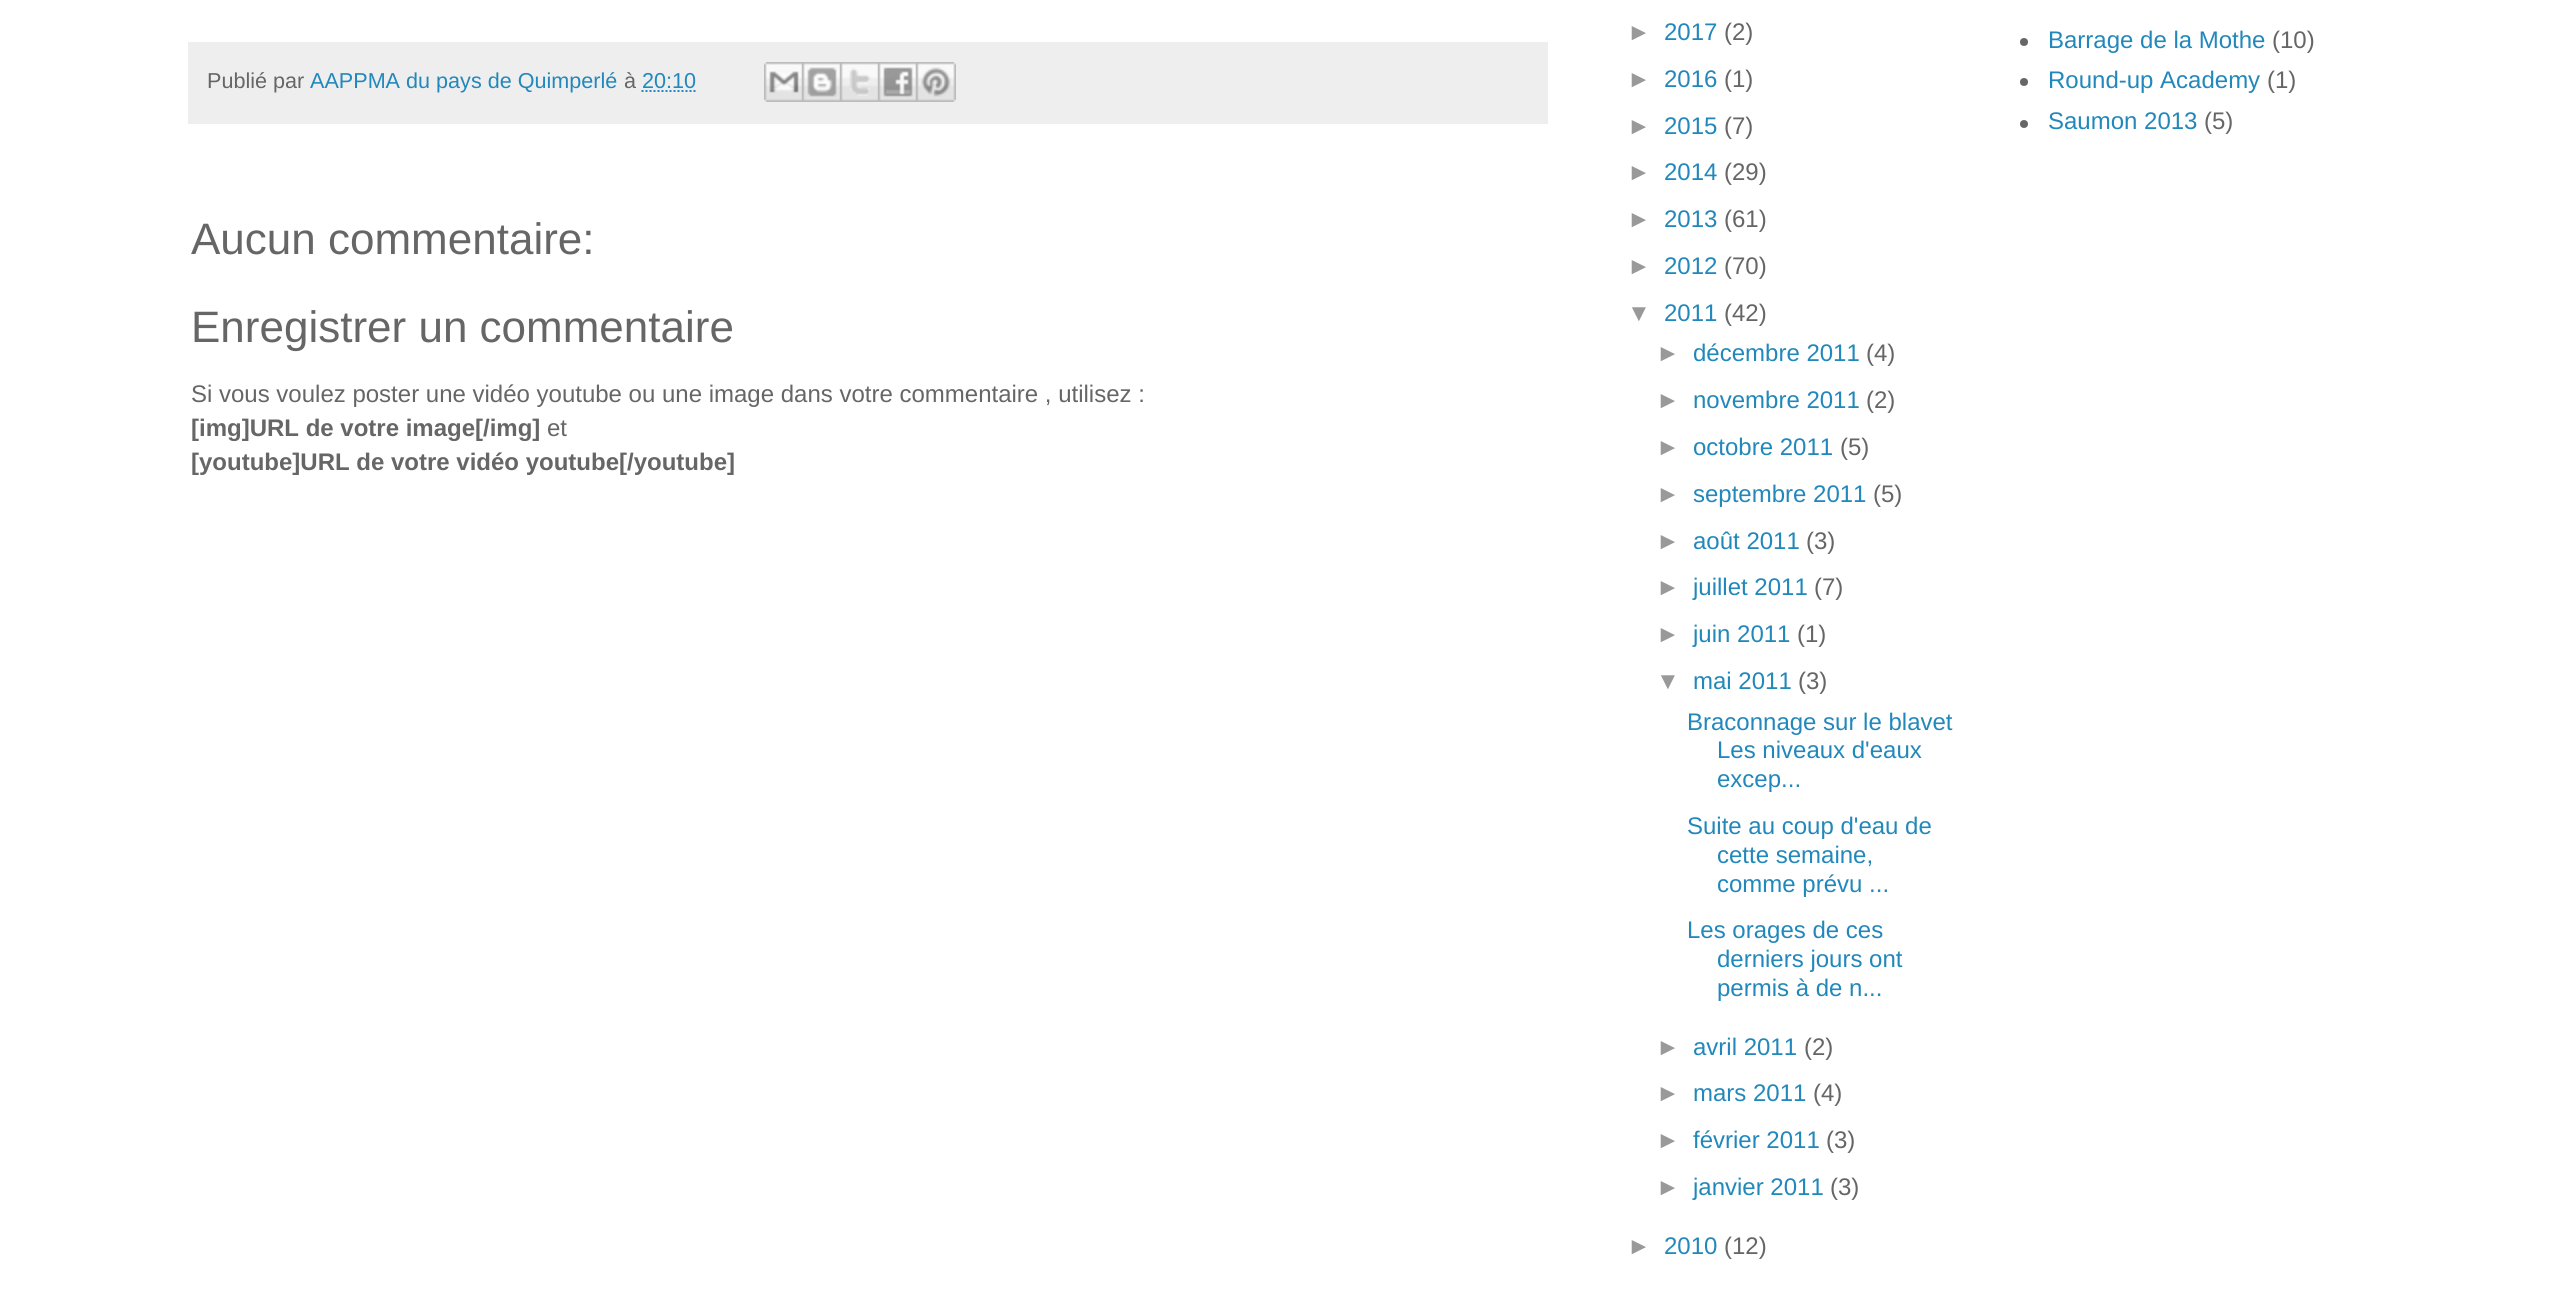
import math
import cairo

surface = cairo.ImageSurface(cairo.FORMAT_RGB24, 2573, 1312)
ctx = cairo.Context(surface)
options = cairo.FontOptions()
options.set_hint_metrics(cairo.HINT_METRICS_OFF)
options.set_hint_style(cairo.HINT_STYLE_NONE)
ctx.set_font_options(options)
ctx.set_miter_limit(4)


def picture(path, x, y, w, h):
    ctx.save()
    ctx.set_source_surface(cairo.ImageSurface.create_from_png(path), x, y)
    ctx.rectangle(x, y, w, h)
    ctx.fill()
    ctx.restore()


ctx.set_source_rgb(1, 1, 1)
ctx.paint()
ctx.set_source_rgb(0.933, 0.933, 0.933)
ctx.rectangle(188, 42, 1360, 82)
ctx.fill()
ctx.select_font_face("Liberation Sans")
ctx.set_font_size(21.6)
ctx.set_source_rgb(0.4, 0.4, 0.4)
ctx.move_to(207, 88)
ctx.show_text("Publié par")
ctx.set_source_rgb(0.133, 0.533, 0.733)
ctx.move_to(310, 88)
ctx.show_text("AAPPMA du pays de Quimperlé")
ctx.set_source_rgb(0.4, 0.4, 0.4)
ctx.move_to(624, 88)
ctx.show_text("à")
ctx.set_source_rgb(0.133, 0.533, 0.733)
ctx.move_to(642, 88)
ctx.show_text("20:10")
ctx.new_path()
ctx.move_to(641.5, 91)
ctx.line_to(695.5, 91)
ctx.set_dash([2, 2])
ctx.stroke()
picture("img1.png", 764, 62, 38, 40)
picture("img2.png", 802, 62, 38, 40)
picture("img3.png", 840, 62, 38, 40)
picture("img4.png", 878, 62, 38, 40)
picture("img5.png", 916, 62, 40, 40)
ctx.set_font_size(44)
ctx.set_source_rgb(0.4, 0.4, 0.4)
ctx.move_to(191, 254)
ctx.show_text("Aucun commentaire:")
ctx.move_to(191, 342)
ctx.show_text("Enregistrer un commentaire")
ctx.set_font_size(24)
ctx.move_to(191, 402)
ctx.show_text("Si vous voulez poster une vidéo youtube ou une image dans votre commentaire , utilisez :")
ctx.select_font_face("Liberation Sans", cairo.FONT_SLANT_NORMAL, cairo.FONT_WEIGHT_BOLD)
ctx.move_to(191, 436)
ctx.show_text("[img]URL de votre image[/img]")
ctx.select_font_face("Liberation Sans")
ctx.move_to(547, 436)
ctx.show_text("et")
ctx.select_font_face("Liberation Sans", cairo.FONT_SLANT_NORMAL, cairo.FONT_WEIGHT_BOLD)
ctx.move_to(191, 470)
ctx.show_text("[youtube]URL de votre vidéo youtube[/youtube]")
ctx.select_font_face("Liberation Sans")
ctx.set_source_rgb(0.6, 0.6, 0.6)
ctx.move_to(1627, 40)
ctx.show_text("►")
ctx.set_source_rgb(0.133, 0.533, 0.733)
ctx.move_to(1664, 40)
ctx.show_text("2017")
ctx.set_source_rgb(0.4, 0.4, 0.4)
ctx.move_to(1724, 40)
ctx.show_text("(2)")
ctx.set_source_rgb(0.6, 0.6, 0.6)
ctx.move_to(1627, 87)
ctx.show_text("►")
ctx.set_source_rgb(0.133, 0.533, 0.733)
ctx.move_to(1664, 87)
ctx.show_text("2016")
ctx.set_source_rgb(0.4, 0.4, 0.4)
ctx.move_to(1724, 87)
ctx.show_text("(1)")
ctx.set_source_rgb(0.6, 0.6, 0.6)
ctx.move_to(1627, 134)
ctx.show_text("►")
ctx.set_source_rgb(0.133, 0.533, 0.733)
ctx.move_to(1664, 134)
ctx.show_text("2015")
ctx.set_source_rgb(0.4, 0.4, 0.4)
ctx.move_to(1724, 134)
ctx.show_text("(7)")
ctx.set_source_rgb(0.6, 0.6, 0.6)
ctx.move_to(1627, 180)
ctx.show_text("►")
ctx.set_source_rgb(0.133, 0.533, 0.733)
ctx.move_to(1664, 180)
ctx.show_text("2014")
ctx.set_source_rgb(0.4, 0.4, 0.4)
ctx.move_to(1724, 180)
ctx.show_text("(29)")
ctx.set_source_rgb(0.6, 0.6, 0.6)
ctx.move_to(1627, 227)
ctx.show_text("►")
ctx.set_source_rgb(0.133, 0.533, 0.733)
ctx.move_to(1664, 227)
ctx.show_text("2013")
ctx.set_source_rgb(0.4, 0.4, 0.4)
ctx.move_to(1724, 227)
ctx.show_text("(61)")
ctx.set_source_rgb(0.6, 0.6, 0.6)
ctx.move_to(1627, 274)
ctx.show_text("►")
ctx.set_source_rgb(0.133, 0.533, 0.733)
ctx.move_to(1664, 274)
ctx.show_text("2012")
ctx.set_source_rgb(0.4, 0.4, 0.4)
ctx.move_to(1724, 274)
ctx.show_text("(70)")
ctx.set_source_rgb(0.6, 0.6, 0.6)
ctx.move_to(1627, 321)
ctx.show_text("▼")
ctx.set_source_rgb(0.133, 0.533, 0.733)
ctx.move_to(1664, 321)
ctx.show_text("2011")
ctx.set_source_rgb(0.4, 0.4, 0.4)
ctx.move_to(1724, 321)
ctx.show_text("(42)")
ctx.set_source_rgb(0.6, 0.6, 0.6)
ctx.move_to(1656, 361)
ctx.show_text("►")
ctx.set_source_rgb(0.133, 0.533, 0.733)
ctx.move_to(1693, 361)
ctx.show_text("décembre 2011")
ctx.set_source_rgb(0.4, 0.4, 0.4)
ctx.move_to(1866, 361)
ctx.show_text("(4)")
ctx.set_source_rgb(0.6, 0.6, 0.6)
ctx.move_to(1656, 408)
ctx.show_text("►")
ctx.set_source_rgb(0.133, 0.533, 0.733)
ctx.move_to(1693, 408)
ctx.show_text("novembre 2011")
ctx.set_source_rgb(0.4, 0.4, 0.4)
ctx.move_to(1866, 408)
ctx.show_text("(2)")
ctx.set_source_rgb(0.6, 0.6, 0.6)
ctx.move_to(1656, 455)
ctx.show_text("►")
ctx.set_source_rgb(0.133, 0.533, 0.733)
ctx.move_to(1693, 455)
ctx.show_text("octobre 2011")
ctx.set_source_rgb(0.4, 0.4, 0.4)
ctx.move_to(1840, 455)
ctx.show_text("(5)")
ctx.set_source_rgb(0.6, 0.6, 0.6)
ctx.move_to(1656, 502)
ctx.show_text("►")
ctx.set_source_rgb(0.133, 0.533, 0.733)
ctx.move_to(1693, 502)
ctx.show_text("septembre 2011")
ctx.set_source_rgb(0.4, 0.4, 0.4)
ctx.move_to(1873, 502)
ctx.show_text("(5)")
ctx.set_source_rgb(0.6, 0.6, 0.6)
ctx.move_to(1656, 549)
ctx.show_text("►")
ctx.set_source_rgb(0.133, 0.533, 0.733)
ctx.move_to(1693, 549)
ctx.show_text("août 2011")
ctx.set_source_rgb(0.4, 0.4, 0.4)
ctx.move_to(1806, 549)
ctx.show_text("(3)")
ctx.set_source_rgb(0.6, 0.6, 0.6)
ctx.move_to(1656, 595)
ctx.show_text("►")
ctx.set_source_rgb(0.133, 0.533, 0.733)
ctx.move_to(1693, 595)
ctx.show_text("juillet 2011")
ctx.set_source_rgb(0.4, 0.4, 0.4)
ctx.move_to(1814, 595)
ctx.show_text("(7)")
ctx.set_source_rgb(0.6, 0.6, 0.6)
ctx.move_to(1656, 642)
ctx.show_text("►")
ctx.set_source_rgb(0.133, 0.533, 0.733)
ctx.move_to(1693, 642)
ctx.show_text("juin 2011")
ctx.set_source_rgb(0.4, 0.4, 0.4)
ctx.move_to(1797, 642)
ctx.show_text("(1)")
ctx.set_source_rgb(0.6, 0.6, 0.6)
ctx.move_to(1656, 689)
ctx.show_text("▼")
ctx.set_source_rgb(0.133, 0.533, 0.733)
ctx.move_to(1693, 689)
ctx.show_text("mai 2011")
ctx.set_source_rgb(0.4, 0.4, 0.4)
ctx.move_to(1798, 689)
ctx.show_text("(3)")
ctx.set_source_rgb(0.133, 0.533, 0.733)
ctx.move_to(1687, 730)
ctx.show_text("Braconnage sur le blavet")
ctx.move_to(1717, 758)
ctx.show_text("Les niveaux d'eaux")
ctx.move_to(1717, 787)
ctx.show_text("excep...")
ctx.move_to(1687, 834)
ctx.show_text("Suite au coup d'eau de")
ctx.move_to(1717, 863)
ctx.show_text("cette semaine,")
ctx.move_to(1717, 892)
ctx.show_text("comme prévu ...")
ctx.move_to(1687, 938)
ctx.show_text("Les orages de ces")
ctx.move_to(1717, 967)
ctx.show_text("derniers jours ont")
ctx.move_to(1717, 996)
ctx.show_text("permis à de n...")
ctx.set_source_rgb(0.6, 0.6, 0.6)
ctx.move_to(1656, 1055)
ctx.show_text("►")
ctx.set_source_rgb(0.133, 0.533, 0.733)
ctx.move_to(1693, 1055)
ctx.show_text("avril 2011")
ctx.set_source_rgb(0.4, 0.4, 0.4)
ctx.move_to(1804, 1055)
ctx.show_text("(2)")
ctx.set_source_rgb(0.6, 0.6, 0.6)
ctx.move_to(1656, 1101)
ctx.show_text("►")
ctx.set_source_rgb(0.133, 0.533, 0.733)
ctx.move_to(1693, 1101)
ctx.show_text("mars 2011")
ctx.set_source_rgb(0.4, 0.4, 0.4)
ctx.move_to(1813, 1101)
ctx.show_text("(4)")
ctx.set_source_rgb(0.6, 0.6, 0.6)
ctx.move_to(1656, 1148)
ctx.show_text("►")
ctx.set_source_rgb(0.133, 0.533, 0.733)
ctx.move_to(1693, 1148)
ctx.show_text("février 2011")
ctx.set_source_rgb(0.4, 0.4, 0.4)
ctx.move_to(1826, 1148)
ctx.show_text("(3)")
ctx.set_source_rgb(0.6, 0.6, 0.6)
ctx.move_to(1656, 1195)
ctx.show_text("►")
ctx.set_source_rgb(0.133, 0.533, 0.733)
ctx.move_to(1693, 1195)
ctx.show_text("janvier 2011")
ctx.set_source_rgb(0.4, 0.4, 0.4)
ctx.move_to(1830, 1195)
ctx.show_text("(3)")
ctx.set_source_rgb(0.6, 0.6, 0.6)
ctx.move_to(1627, 1254)
ctx.show_text("►")
ctx.set_source_rgb(0.133, 0.533, 0.733)
ctx.move_to(1664, 1254)
ctx.show_text("2010")
ctx.set_source_rgb(0.4, 0.4, 0.4)
ctx.move_to(1724, 1254)
ctx.show_text("(12)")
ctx.new_path()
ctx.arc(2024, 42, 4, 0, 2 * math.pi)
ctx.fill()
ctx.set_source_rgb(0.133, 0.533, 0.733)
ctx.move_to(2048, 48)
ctx.show_text("Barrage de la Mothe")
ctx.set_source_rgb(0.4, 0.4, 0.4)
ctx.move_to(2272, 48)
ctx.show_text("(10)")
ctx.new_path()
ctx.arc(2024, 82, 4, 0, 2 * math.pi)
ctx.fill()
ctx.set_source_rgb(0.133, 0.533, 0.733)
ctx.move_to(2048, 88)
ctx.show_text("Round-up Academy")
ctx.set_source_rgb(0.4, 0.4, 0.4)
ctx.move_to(2267, 88)
ctx.show_text("(1)")
ctx.new_path()
ctx.arc(2024, 124, 4, 0, 2 * math.pi)
ctx.fill()
ctx.set_source_rgb(0.133, 0.533, 0.733)
ctx.move_to(2048, 129)
ctx.show_text("Saumon 2013")
ctx.set_source_rgb(0.4, 0.4, 0.4)
ctx.move_to(2204, 129)
ctx.show_text("(5)")
surface.write_to_png("page.png")
